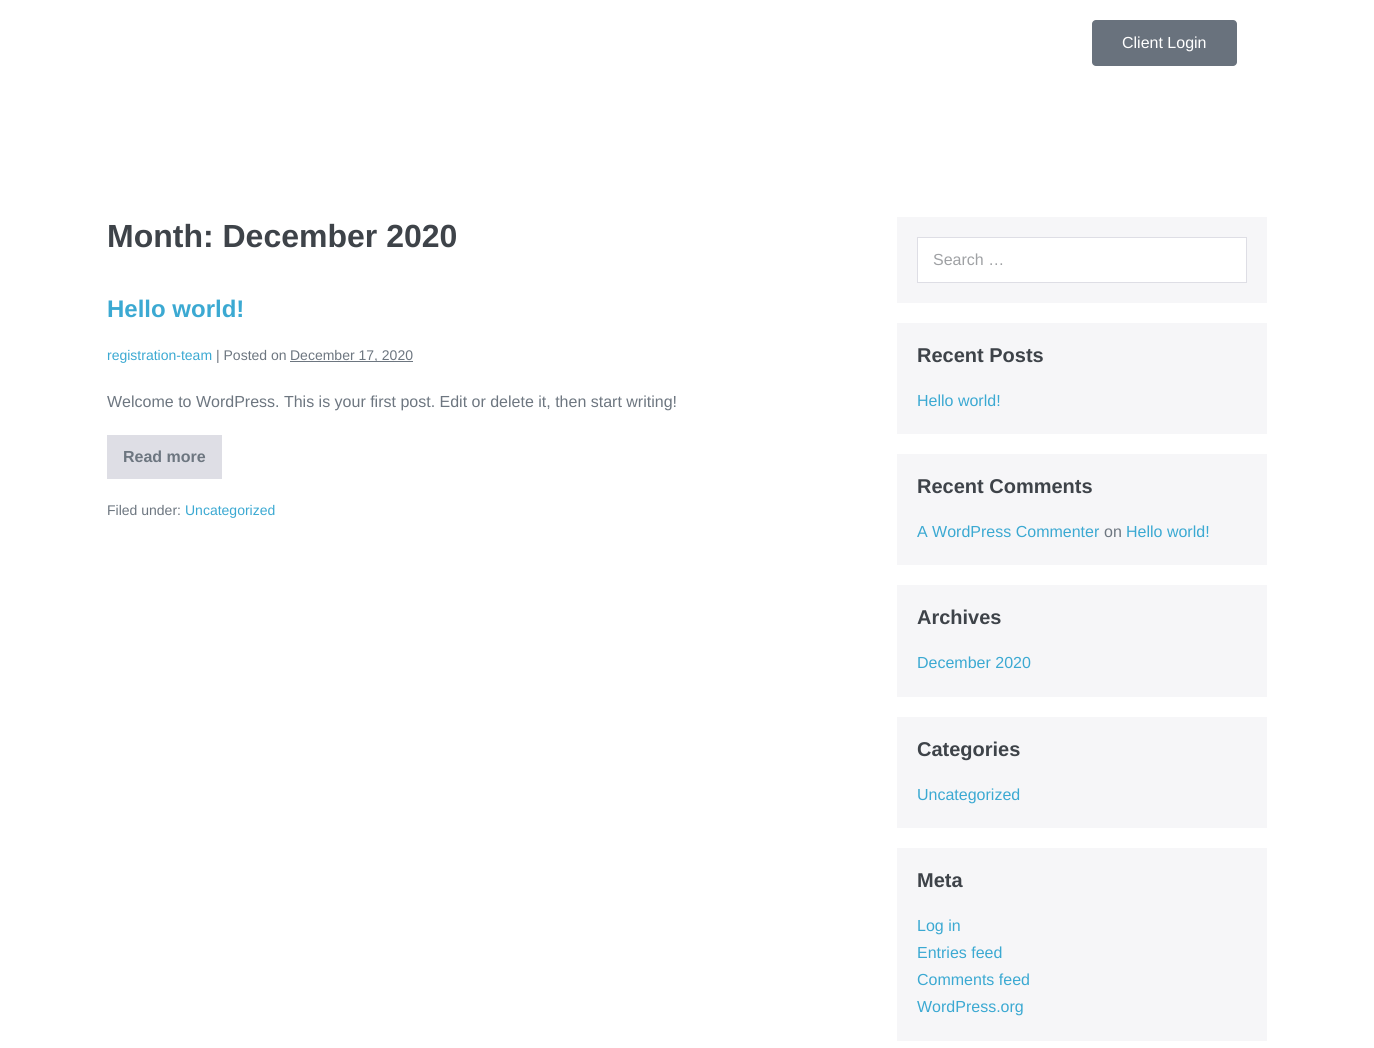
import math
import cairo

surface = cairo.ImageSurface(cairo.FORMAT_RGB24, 1374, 1048)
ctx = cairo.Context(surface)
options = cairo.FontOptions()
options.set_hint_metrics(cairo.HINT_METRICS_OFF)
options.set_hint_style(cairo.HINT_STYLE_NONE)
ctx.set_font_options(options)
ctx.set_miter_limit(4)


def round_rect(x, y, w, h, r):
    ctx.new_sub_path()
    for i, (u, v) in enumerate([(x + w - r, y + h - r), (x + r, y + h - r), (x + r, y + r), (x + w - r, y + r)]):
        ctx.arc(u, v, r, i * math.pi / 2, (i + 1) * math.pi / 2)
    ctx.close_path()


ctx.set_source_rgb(1, 1, 1)
ctx.paint()
ctx.set_source_rgb(0.412, 0.447, 0.49)
round_rect(1092, 20, 145, 46, 4)
ctx.fill()
ctx.select_font_face("Liberation Sans")
ctx.set_font_size(16)
ctx.set_source_rgb(1, 1, 1)
ctx.move_to(1122, 48)
ctx.show_text("Client Login")
ctx.select_font_face("Liberation Sans", cairo.FONT_SLANT_NORMAL, cairo.FONT_WEIGHT_BOLD)
ctx.set_font_size(32)
ctx.set_source_rgb(0.243, 0.263, 0.286)
ctx.move_to(107, 247)
ctx.show_text("Month: December 2020")
ctx.set_font_size(24)
ctx.set_source_rgb(0.231, 0.663, 0.824)
ctx.move_to(107, 317)
ctx.show_text("Hello world!")
ctx.select_font_face("Liberation Sans")
ctx.set_font_size(14)
ctx.move_to(107, 360)
ctx.show_text("registration-team")
ctx.set_source_rgb(0.427, 0.463, 0.502)
ctx.move_to(216, 360)
ctx.show_text("| Posted on")
ctx.rectangle(290, 361, 123, 1)
ctx.fill()
ctx.move_to(290, 360)
ctx.show_text("December 17, 2020")
ctx.set_font_size(16)
ctx.move_to(107, 407)
ctx.show_text("Welcome to WordPress. This is your first post. Edit or delete it, then start writing!")
ctx.set_source_rgb(0.871, 0.871, 0.898)
ctx.rectangle(107, 435, 115, 44)
ctx.fill()
ctx.select_font_face("Liberation Sans", cairo.FONT_SLANT_NORMAL, cairo.FONT_WEIGHT_BOLD)
ctx.set_source_rgb(0.427, 0.463, 0.502)
ctx.move_to(123, 462)
ctx.show_text("Read more")
ctx.select_font_face("Liberation Sans")
ctx.set_font_size(14)
ctx.move_to(107, 515)
ctx.show_text("Filed under:")
ctx.set_source_rgb(0.231, 0.663, 0.824)
ctx.move_to(185, 515)
ctx.show_text("Uncategorized")
ctx.set_source_rgb(0.961, 0.961, 0.969)
ctx.rectangle(897, 217, 370, 86)
ctx.fill()
ctx.set_source_rgb(1, 1, 1)
ctx.rectangle(917.5, 237.5, 329, 45)
ctx.fill_preserve()
ctx.set_source_rgb(0.871, 0.871, 0.898)
ctx.set_line_width(1)
ctx.stroke()
ctx.set_font_size(16)
ctx.set_source_rgb(0.624, 0.631, 0.643)
ctx.move_to(933, 265)
ctx.show_text("Search …")
ctx.set_source_rgb(0.961, 0.961, 0.969)
ctx.rectangle(897, 323, 370, 111)
ctx.fill()
ctx.select_font_face("Liberation Sans", cairo.FONT_SLANT_NORMAL, cairo.FONT_WEIGHT_BOLD)
ctx.set_font_size(20)
ctx.set_source_rgb(0.243, 0.263, 0.286)
ctx.move_to(917, 362)
ctx.show_text("Recent Posts")
ctx.select_font_face("Liberation Sans")
ctx.set_font_size(16)
ctx.set_source_rgb(0.231, 0.663, 0.824)
ctx.move_to(917, 406)
ctx.show_text("Hello world!")
ctx.set_source_rgb(0.961, 0.961, 0.969)
ctx.rectangle(897, 454, 370, 111)
ctx.fill()
ctx.select_font_face("Liberation Sans", cairo.FONT_SLANT_NORMAL, cairo.FONT_WEIGHT_BOLD)
ctx.set_font_size(20)
ctx.set_source_rgb(0.243, 0.263, 0.286)
ctx.move_to(917, 493)
ctx.show_text("Recent Comments")
ctx.select_font_face("Liberation Sans")
ctx.set_font_size(16)
ctx.set_source_rgb(0.231, 0.663, 0.824)
ctx.move_to(917, 537)
ctx.show_text("A WordPress Commenter")
ctx.set_source_rgb(0.427, 0.463, 0.502)
ctx.move_to(1104, 537)
ctx.show_text("on")
ctx.set_source_rgb(0.231, 0.663, 0.824)
ctx.move_to(1126, 537)
ctx.show_text("Hello world!")
ctx.set_source_rgb(0.961, 0.961, 0.969)
ctx.rectangle(897, 585, 370, 112)
ctx.fill()
ctx.select_font_face("Liberation Sans", cairo.FONT_SLANT_NORMAL, cairo.FONT_WEIGHT_BOLD)
ctx.set_font_size(20)
ctx.set_source_rgb(0.243, 0.263, 0.286)
ctx.move_to(917, 624)
ctx.show_text("Archives")
ctx.select_font_face("Liberation Sans")
ctx.set_font_size(16)
ctx.set_source_rgb(0.231, 0.663, 0.824)
ctx.move_to(917, 668)
ctx.show_text("December 2020")
ctx.set_source_rgb(0.961, 0.961, 0.969)
ctx.rectangle(897, 717, 370, 111)
ctx.fill()
ctx.select_font_face("Liberation Sans", cairo.FONT_SLANT_NORMAL, cairo.FONT_WEIGHT_BOLD)
ctx.set_font_size(20)
ctx.set_source_rgb(0.243, 0.263, 0.286)
ctx.move_to(917, 756)
ctx.show_text("Categories")
ctx.select_font_face("Liberation Sans")
ctx.set_font_size(16)
ctx.set_source_rgb(0.231, 0.663, 0.824)
ctx.move_to(917, 800)
ctx.show_text("Uncategorized")
ctx.set_source_rgb(0.961, 0.961, 0.969)
ctx.rectangle(897, 848, 370, 193)
ctx.fill()
ctx.select_font_face("Liberation Sans", cairo.FONT_SLANT_NORMAL, cairo.FONT_WEIGHT_BOLD)
ctx.set_font_size(20)
ctx.set_source_rgb(0.243, 0.263, 0.286)
ctx.move_to(917, 887)
ctx.show_text("Meta")
ctx.select_font_face("Liberation Sans")
ctx.set_font_size(16)
ctx.set_source_rgb(0.231, 0.663, 0.824)
ctx.move_to(917, 931)
ctx.show_text("Log in")
ctx.move_to(917, 958)
ctx.show_text("Entries feed")
ctx.move_to(917, 985)
ctx.show_text("Comments feed")
ctx.move_to(917, 1012)
ctx.show_text("WordPress.org")
surface.write_to_png("page.png")
